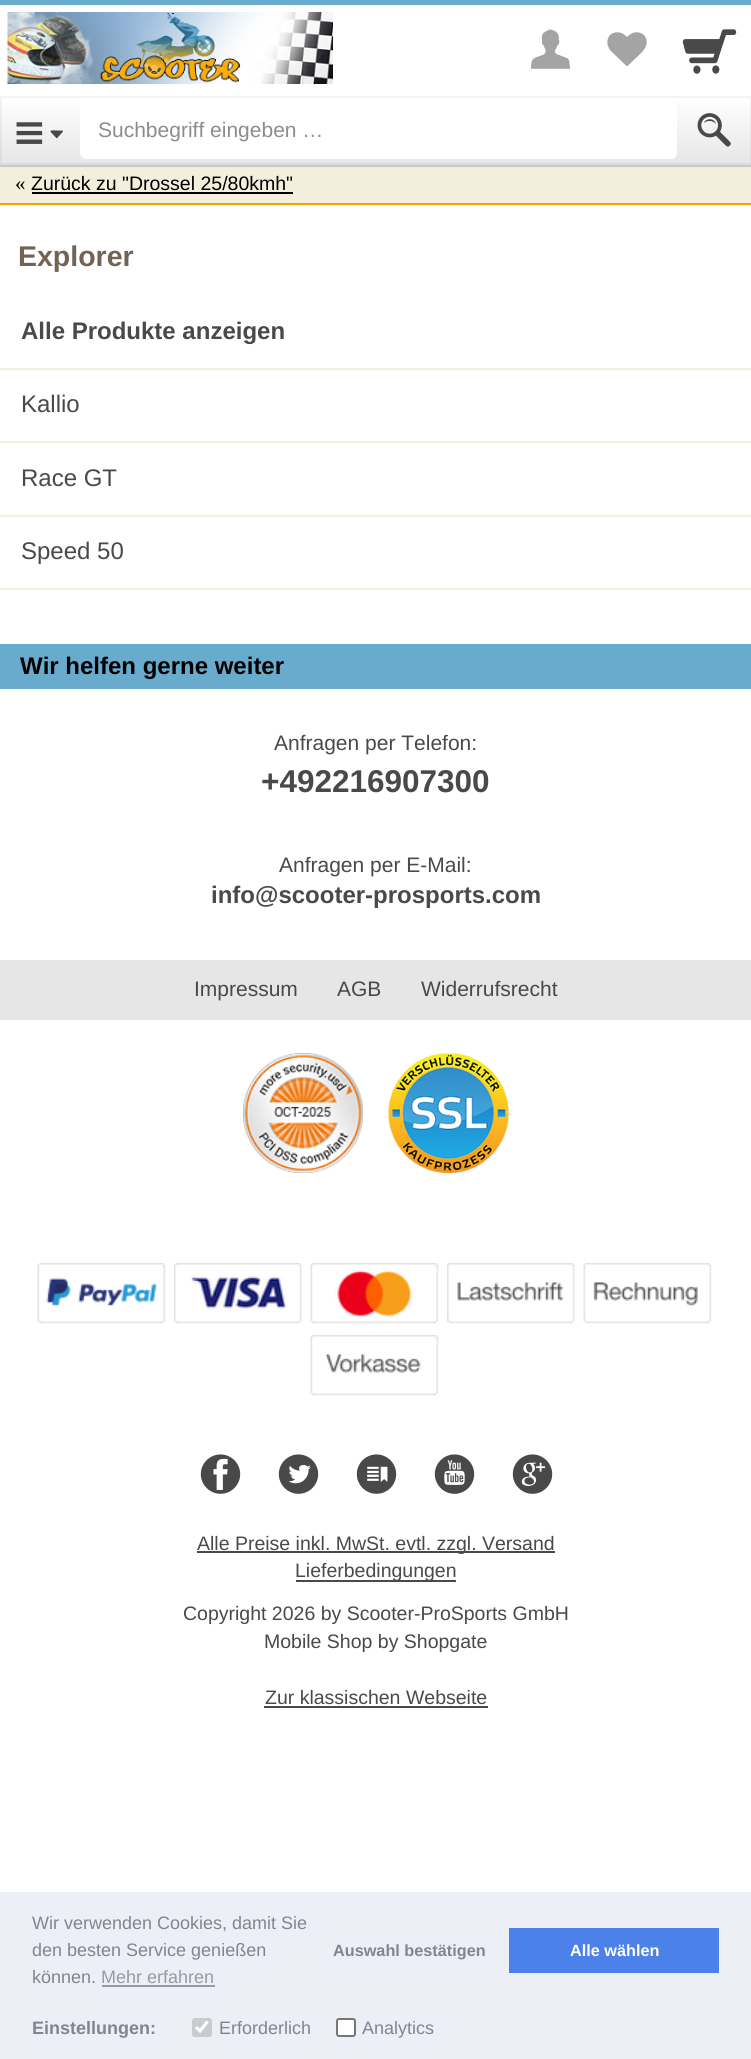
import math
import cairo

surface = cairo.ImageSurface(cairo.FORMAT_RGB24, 751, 2059)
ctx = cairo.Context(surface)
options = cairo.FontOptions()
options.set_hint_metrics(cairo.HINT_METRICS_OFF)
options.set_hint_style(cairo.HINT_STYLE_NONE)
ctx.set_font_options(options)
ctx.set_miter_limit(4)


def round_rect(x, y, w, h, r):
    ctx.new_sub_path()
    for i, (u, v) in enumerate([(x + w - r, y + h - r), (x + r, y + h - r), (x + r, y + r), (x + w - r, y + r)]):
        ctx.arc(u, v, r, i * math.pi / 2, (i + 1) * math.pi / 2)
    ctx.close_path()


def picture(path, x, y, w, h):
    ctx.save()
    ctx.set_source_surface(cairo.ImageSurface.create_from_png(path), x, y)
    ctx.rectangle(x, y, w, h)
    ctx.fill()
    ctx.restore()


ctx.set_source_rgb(1, 1, 1)
ctx.paint()
ctx.set_source_rgb(0.788, 0.788, 0.788)
ctx.rectangle(0, 165, 751, 2)
ctx.fill()
ctx.set_source_rgb(0.412, 0.671, 0.804)
ctx.rectangle(0, 0, 751, 5)
ctx.fill()
picture("img1.png", 7, 12, 326, 72)
picture("img2.png", 530, 29, 41, 40)
picture("img3.png", 607, 32, 40, 34)
picture("img4.png", 682, 29, 55, 45)
gradient = cairo.LinearGradient(376, 96, 376, 165)
gradient.add_color_stop_rgba(0, 1, 1, 1, 1)
gradient.add_color_stop_rgba(1, 0.902, 0.902, 0.902, 1)
ctx.set_source(gradient)
ctx.rectangle(0, 103, 751, 62)
ctx.fill()
ctx.rectangle(1, 97, 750, 67)
ctx.set_source_rgba(0, 0, 0, 0.05)
ctx.stroke()
picture("img5.png", 16, 122, 47, 22)
ctx.set_source_rgb(1, 1, 1)
round_rect(80, 102, 597, 57, 6)
ctx.fill()
ctx.select_font_face("Liberation Sans")
ctx.set_font_size(21)
ctx.set_source_rgb(0.549, 0.549, 0.549)
ctx.move_to(98, 137)
ctx.show_text("Suchbegriff eingeben …")
picture("img6.png", 697, 113, 34, 34)
ctx.set_source_rgb(0.957, 0.933, 0.867)
ctx.rectangle(0, 167, 751, 36)
ctx.fill()
ctx.set_source_rgb(0.961, 0.627, 0)
ctx.rectangle(0, 203, 751, 2)
ctx.fill()
ctx.select_font_face("Liberation Serif")
ctx.set_source_rgb(0, 0, 0)
ctx.move_to(15, 190)
ctx.show_text("«")
ctx.select_font_face("Liberation Sans")
ctx.set_font_size(19.5)
ctx.move_to(31, 190)
ctx.show_text("Zurück zu \"Drossel 25/80kmh\"")
ctx.rectangle(32, 192, 261, 2)
ctx.fill()
ctx.select_font_face("Liberation Sans", cairo.FONT_SLANT_NORMAL, cairo.FONT_WEIGHT_BOLD)
ctx.set_font_size(28.5)
ctx.set_source_rgb(0.451, 0.388, 0.329)
ctx.move_to(18, 266)
ctx.show_text("Explorer")
ctx.set_source_rgb(0.957, 0.933, 0.871)
ctx.rectangle(0, 588, 751, 2)
ctx.fill()
ctx.set_font_size(24)
ctx.set_source_rgb(0.286, 0.286, 0.286)
ctx.move_to(21, 339)
ctx.show_text("Alle Produkte anzeigen")
ctx.set_source_rgb(0.957, 0.933, 0.871)
ctx.rectangle(0, 368, 751, 2)
ctx.fill()
ctx.select_font_face("Liberation Sans")
ctx.set_source_rgb(0.286, 0.286, 0.286)
ctx.move_to(21, 412)
ctx.show_text("Kallio")
ctx.set_source_rgb(0.957, 0.933, 0.871)
ctx.rectangle(0, 441, 751, 2)
ctx.fill()
ctx.set_source_rgb(0.286, 0.286, 0.286)
ctx.move_to(21, 486)
ctx.show_text("Race GT")
ctx.set_source_rgb(0.957, 0.933, 0.871)
ctx.rectangle(0, 515, 751, 2)
ctx.fill()
ctx.set_source_rgb(0.286, 0.286, 0.286)
ctx.move_to(21, 559)
ctx.show_text("Speed 50")
ctx.set_source_rgb(0.412, 0.671, 0.804)
ctx.rectangle(0, 644, 751, 45)
ctx.fill()
ctx.select_font_face("Liberation Sans", cairo.FONT_SLANT_NORMAL, cairo.FONT_WEIGHT_BOLD)
ctx.set_source_rgb(0, 0, 0)
ctx.move_to(20, 674)
ctx.show_text("Wir helfen gerne weiter")
ctx.select_font_face("Liberation Sans")
ctx.set_font_size(21)
ctx.set_source_rgb(0.286, 0.286, 0.286)
ctx.move_to(274, 750)
ctx.show_text("Anfragen per Telefon:")
ctx.select_font_face("Liberation Sans", cairo.FONT_SLANT_NORMAL, cairo.FONT_WEIGHT_BOLD)
ctx.set_font_size(31.5)
ctx.move_to(261, 792)
ctx.show_text("+492216907300")
ctx.select_font_face("Liberation Sans")
ctx.set_font_size(21)
ctx.move_to(279, 872)
ctx.show_text("Anfragen per E-Mail:")
ctx.select_font_face("Liberation Sans", cairo.FONT_SLANT_NORMAL, cairo.FONT_WEIGHT_BOLD)
ctx.set_font_size(24)
ctx.move_to(211, 903)
ctx.show_text("info@scooter-prosports.com")
ctx.set_source_rgb(0.902, 0.902, 0.902)
ctx.rectangle(0, 960, 751, 60)
ctx.fill()
ctx.select_font_face("Liberation Sans")
ctx.set_font_size(21)
ctx.set_source_rgb(0.286, 0.286, 0.286)
ctx.move_to(194, 996)
ctx.show_text("Impressum")
ctx.move_to(337, 996)
ctx.show_text("AGB")
ctx.move_to(421, 996)
ctx.show_text("Widerrufsrecht")
picture("img7.png", 243, 1053, 120, 120)
picture("img8.png", 388, 1053, 121, 120)
picture("img9.png", 37, 1263, 129, 61)
picture("img10.png", 174, 1263, 128, 61)
picture("img11.png", 310, 1263, 129, 61)
picture("img12.png", 447, 1263, 128, 61)
picture("img13.png", 583, 1263, 129, 61)
picture("img14.png", 310, 1335, 129, 61)
picture("img15.png", 200, 1454, 41, 40)
picture("img16.png", 278, 1454, 41, 40)
picture("img17.png", 356, 1454, 41, 40)
picture("img18.png", 434, 1454, 41, 40)
picture("img19.png", 512, 1454, 41, 40)
ctx.rectangle(197, 1551, 358, 2)
ctx.fill()
ctx.set_font_size(19.5)
ctx.move_to(197, 1550)
ctx.show_text("Alle Preise inkl. MwSt. evtl. zzgl. Versand")
ctx.rectangle(296, 1580, 160, 2)
ctx.fill()
ctx.move_to(295, 1577)
ctx.show_text("Lieferbedingungen")
ctx.move_to(183, 1620)
ctx.show_text("Copyright 2026 by Scooter-ProSports GmbH")
ctx.move_to(264, 1648)
ctx.show_text("Mobile Shop by Shopgate")
ctx.move_to(265, 1704)
ctx.show_text("Zur klassischen Webseite")
ctx.rectangle(264, 1706, 224, 2)
ctx.fill()
ctx.set_source_rgb(0.929, 0.937, 0.961)
ctx.rectangle(0, 1892, 751, 167)
ctx.fill()
ctx.set_font_size(18)
ctx.set_source_rgb(0.514, 0.514, 0.569)
ctx.move_to(32, 1929)
ctx.show_text("Wir verwenden Cookies, damit Sie")
ctx.move_to(32, 1956)
ctx.show_text("den besten Service genießen")
ctx.move_to(32, 1983)
ctx.show_text("können.")
ctx.set_source_rgb(0.596, 0.6, 0.647)
ctx.move_to(101, 1983)
ctx.show_text("Mehr erfahren")
ctx.rectangle(102, 1985, 113, 2)
ctx.fill()
ctx.select_font_face("Liberation Sans", cairo.FONT_SLANT_NORMAL, cairo.FONT_WEIGHT_BOLD)
ctx.set_font_size(16.25)
ctx.set_source_rgb(0.514, 0.514, 0.569)
ctx.move_to(333, 1956)
ctx.show_text("Auswahl bestätigen")
ctx.set_source_rgb(0.294, 0.506, 0.91)
ctx.rectangle(509, 1928, 210, 45)
ctx.fill()
ctx.set_source_rgb(1, 1, 1)
ctx.move_to(570, 1956)
ctx.show_text("Alle wählen")
ctx.set_font_size(18)
ctx.set_source_rgb(0.514, 0.514, 0.569)
ctx.move_to(32, 2034)
ctx.show_text("Einstellungen:")
ctx.set_source_rgb(0.788, 0.796, 0.812)
round_rect(192, 2018, 20, 19, 3)
ctx.fill()
ctx.new_path()
ctx.move_to(196, 2027)
ctx.line_to(200, 2031)
ctx.line_to(207.5, 2021.5)
ctx.set_source_rgb(1, 1, 1)
ctx.set_line_width(3.1)
ctx.stroke()
ctx.select_font_face("Liberation Sans")
ctx.set_source_rgb(0.514, 0.514, 0.569)
ctx.move_to(219, 2034)
ctx.show_text("Erforderlich")
ctx.set_source_rgb(1, 1, 1)
round_rect(337, 2019, 18, 17, 2)
ctx.fill_preserve()
ctx.set_source_rgb(0.463, 0.463, 0.463)
ctx.set_line_width(2)
ctx.stroke()
ctx.set_source_rgb(0.514, 0.514, 0.569)
ctx.move_to(362, 2034)
ctx.show_text("Analytics")
surface.write_to_png("page.png")
